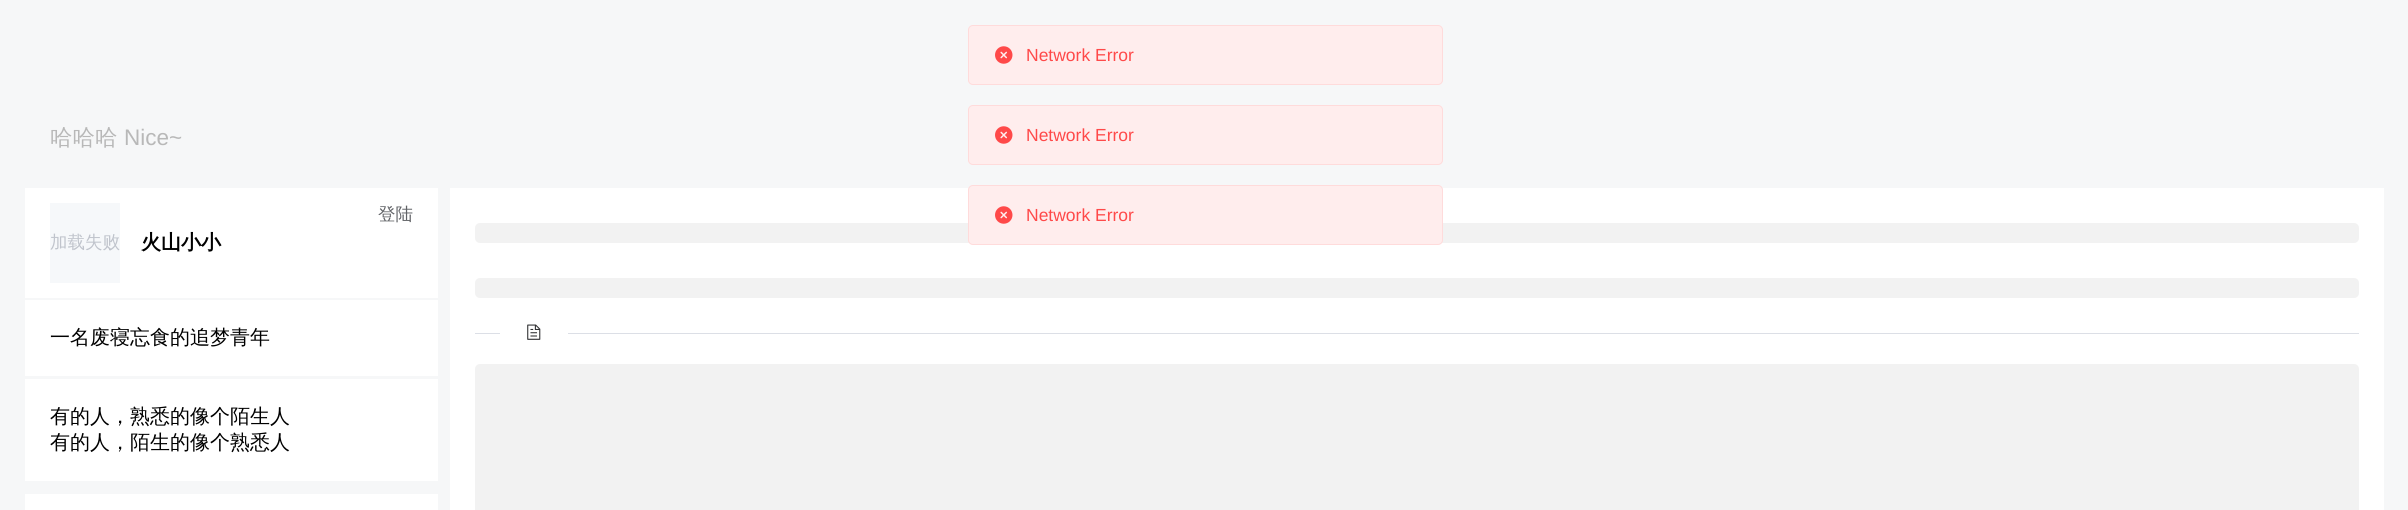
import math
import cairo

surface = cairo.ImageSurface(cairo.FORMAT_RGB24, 2408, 510)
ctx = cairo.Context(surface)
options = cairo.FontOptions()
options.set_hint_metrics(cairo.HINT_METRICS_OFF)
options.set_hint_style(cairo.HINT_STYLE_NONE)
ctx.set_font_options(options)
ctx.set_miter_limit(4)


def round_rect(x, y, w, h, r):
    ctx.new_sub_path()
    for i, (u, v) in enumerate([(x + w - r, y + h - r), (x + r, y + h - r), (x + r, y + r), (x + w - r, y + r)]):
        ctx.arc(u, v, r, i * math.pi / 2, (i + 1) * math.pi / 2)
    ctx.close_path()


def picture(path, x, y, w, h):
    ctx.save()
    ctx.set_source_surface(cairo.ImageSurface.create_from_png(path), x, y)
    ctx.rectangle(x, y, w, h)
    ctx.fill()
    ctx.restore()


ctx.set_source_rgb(0.961, 0.965, 0.969)
ctx.paint()
ctx.set_source_rgb(1, 0.929, 0.929)
round_rect(968.5, 25.5, 474, 59, 4.5)
ctx.fill_preserve()
ctx.set_source_rgb(1, 0.859, 0.859)
ctx.set_line_width(1)
ctx.stroke()
picture("img1.png", 995, 46, 18, 18)
ctx.select_font_face("Liberation Sans")
ctx.set_font_size(17.5)
ctx.set_source_rgb(1, 0.286, 0.286)
ctx.move_to(1026, 61)
ctx.show_text("Network Error")
ctx.select_font_face("WenQuanYi Zen Hei Medium")
ctx.set_font_size(22.5)
ctx.set_source_rgb(0.722, 0.722, 0.722)
ctx.move_to(50, 145)
ctx.show_text("哈哈哈")
ctx.select_font_face("Liberation Sans")
ctx.move_to(124, 145)
ctx.show_text("Nice~")
ctx.set_source_rgb(1, 1, 1)
ctx.rectangle(25, 188, 413, 110)
ctx.fill()
ctx.select_font_face("WenQuanYi Zen Hei Medium")
ctx.set_font_size(17.5)
ctx.set_source_rgb(0.376, 0.384, 0.4)
ctx.move_to(378, 220)
ctx.show_text("登陆")
ctx.set_source_rgb(0.961, 0.969, 0.98)
ctx.rectangle(50, 203, 70, 80)
ctx.fill()
ctx.set_source_rgb(0.753, 0.769, 0.8)
ctx.move_to(50, 248)
ctx.show_text("加载失败")
ctx.select_font_face("WenQuanYi Zen Hei", cairo.FONT_SLANT_NORMAL, cairo.FONT_WEIGHT_BOLD)
ctx.set_font_size(20)
ctx.set_source_rgb(0, 0, 0)
ctx.move_to(141, 249)
ctx.show_text("火山小小")
ctx.set_source_rgb(1, 1, 1)
ctx.rectangle(25, 300, 413, 76)
ctx.fill()
ctx.select_font_face("WenQuanYi Zen Hei Medium")
ctx.set_source_rgb(0, 0, 0)
ctx.move_to(50, 344)
ctx.show_text("一名废寝忘食的追梦青年")
ctx.set_source_rgb(1, 1, 1)
ctx.rectangle(25, 379, 413, 102)
ctx.fill()
ctx.set_source_rgb(0, 0, 0)
ctx.move_to(50, 423)
ctx.show_text("有的人，熟悉的像个陌生人")
ctx.move_to(50, 449)
ctx.show_text("有的人，陌生的像个熟悉人")
ctx.set_source_rgb(1, 1, 1)
ctx.rectangle(25, 494, 413, 16)
ctx.fill()
ctx.rectangle(450, 188, 1934, 322)
ctx.fill()
gradient = cairo.LinearGradient(475, 233, 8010, 232)
gradient.add_color_stop_rgba(0.25, 0.949, 0.949, 0.949, 1)
gradient.add_color_stop_rgba(0.37, 0.902, 0.902, 0.902, 1)
gradient.add_color_stop_rgba(0.63, 0.949, 0.949, 0.949, 1)
ctx.set_source(gradient)
round_rect(475, 223, 1884, 20, 5)
ctx.fill()
gradient = cairo.LinearGradient(475, 288, 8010, 287)
gradient.add_color_stop_rgba(0.25, 0.949, 0.949, 0.949, 1)
gradient.add_color_stop_rgba(0.37, 0.902, 0.902, 0.902, 1)
gradient.add_color_stop_rgba(0.63, 0.949, 0.949, 0.949, 1)
ctx.set_source(gradient)
round_rect(475, 278, 1884, 20, 5)
ctx.fill()
ctx.set_source_rgb(0.863, 0.875, 0.902)
ctx.rectangle(475, 333, 1884, 1)
ctx.fill()
ctx.set_source_rgb(1, 1, 1)
ctx.rectangle(500, 333, 68, 1)
ctx.fill()
picture("img2.png", 527, 324, 14, 16)
gradient = cairo.LinearGradient(475, 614, 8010, 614)
gradient.add_color_stop_rgba(0.25, 0.949, 0.949, 0.949, 1)
gradient.add_color_stop_rgba(0.37, 0.902, 0.902, 0.902, 1)
gradient.add_color_stop_rgba(0.63, 0.949, 0.949, 0.949, 1)
ctx.set_source(gradient)
round_rect(475, 364, 1884, 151, 5)
ctx.fill()
ctx.set_source_rgb(1, 0.929, 0.929)
round_rect(968.5, 105.5, 474, 59, 4.5)
ctx.fill_preserve()
ctx.set_source_rgb(1, 0.859, 0.859)
ctx.stroke()
picture("img1.png", 995, 126, 18, 18)
ctx.select_font_face("Liberation Sans")
ctx.set_font_size(17.5)
ctx.set_source_rgb(1, 0.286, 0.286)
ctx.move_to(1026, 141)
ctx.show_text("Network Error")
ctx.set_source_rgb(1, 0.929, 0.929)
round_rect(968.5, 185.5, 474, 59, 4.5)
ctx.fill_preserve()
ctx.set_source_rgb(1, 0.859, 0.859)
ctx.stroke()
picture("img1.png", 995, 206, 18, 18)
ctx.set_source_rgb(1, 0.286, 0.286)
ctx.move_to(1026, 221)
ctx.show_text("Network Error")
surface.write_to_png("page.png")
